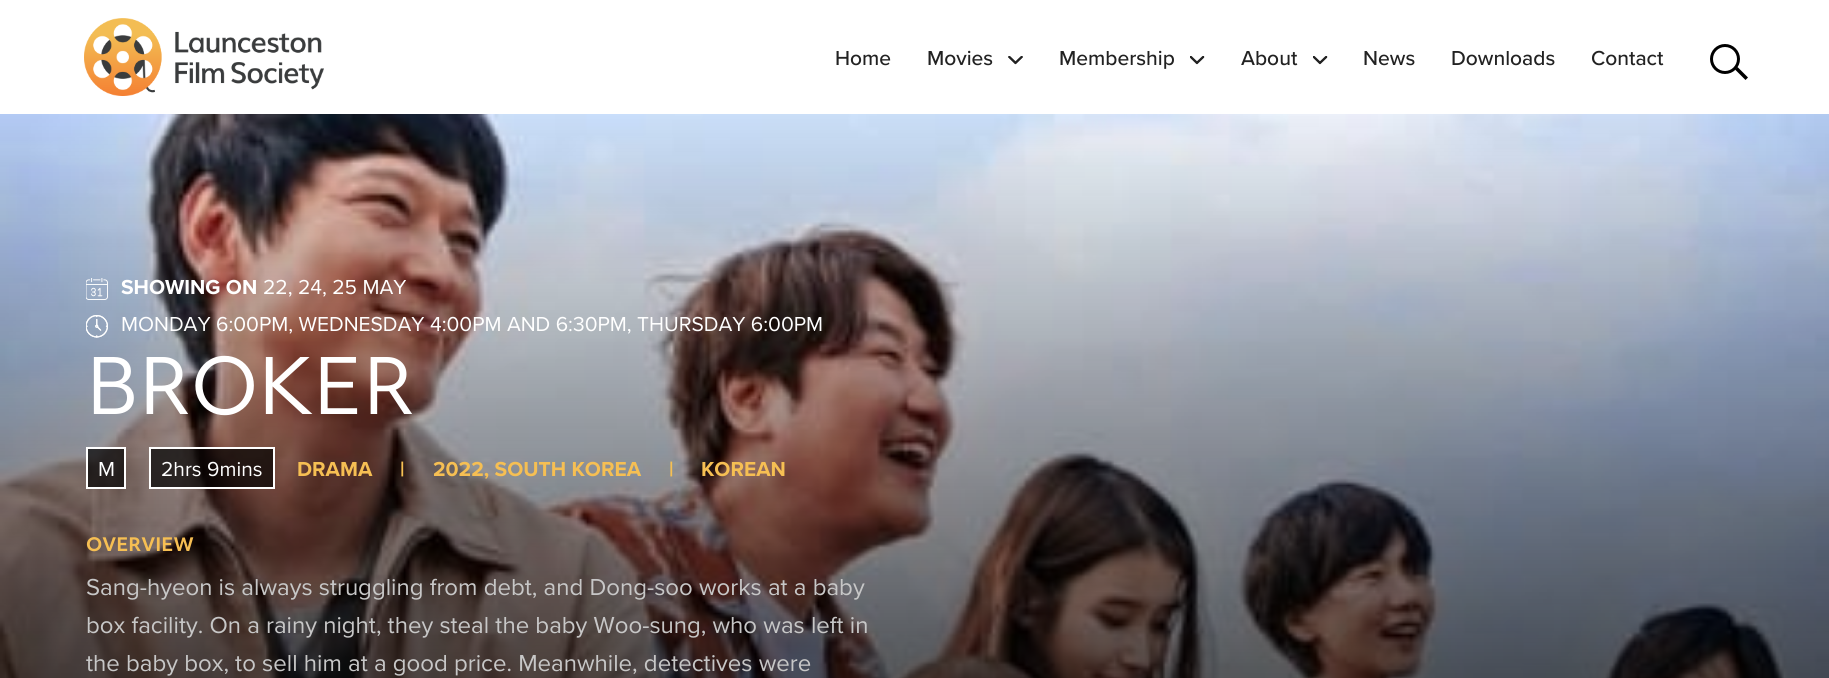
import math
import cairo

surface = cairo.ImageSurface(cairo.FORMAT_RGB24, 1829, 678)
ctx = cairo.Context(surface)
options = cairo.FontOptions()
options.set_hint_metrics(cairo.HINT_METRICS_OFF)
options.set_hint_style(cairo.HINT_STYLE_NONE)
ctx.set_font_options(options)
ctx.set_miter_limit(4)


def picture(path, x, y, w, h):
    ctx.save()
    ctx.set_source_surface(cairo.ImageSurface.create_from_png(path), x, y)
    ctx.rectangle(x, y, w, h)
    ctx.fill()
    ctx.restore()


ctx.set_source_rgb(1, 1, 1)
ctx.paint()
picture("img1.png", 84, 18, 240, 78)
ctx.select_font_face("Proxima Nova Medium")
ctx.set_font_size(21)
ctx.set_source_rgb(0.133, 0.133, 0.133)
ctx.move_to(835, 65)
ctx.show_text("Home")
ctx.move_to(927, 65)
ctx.show_text("Movies")
picture("img2.png", 1008, 56, 15, 9)
ctx.move_to(1059, 65)
ctx.show_text("Membership")
picture("img3.png", 1190, 56, 15, 9)
ctx.move_to(1241, 65)
ctx.show_text("About")
picture("img3.png", 1313, 56, 15, 9)
ctx.move_to(1363, 65)
ctx.show_text("News")
ctx.move_to(1451, 65)
ctx.show_text("Downloads")
ctx.move_to(1591, 65)
ctx.show_text("Contact")
ctx.new_path()
ctx.arc(1725, 59, 13.5, 0, 2 * math.pi)
ctx.set_source_rgb(0, 0, 0)
ctx.set_line_width(3)
ctx.stroke()
ctx.new_path()
ctx.move_to(1735, 69.5)
ctx.line_to(1737.5, 67)
ctx.line_to(1748, 77.5)
ctx.line_to(1745.5, 80)
ctx.close_path()
ctx.fill()
picture("img4.png", 0, 114, 1829, 564)
picture("img5.png", 86, 278, 22, 22)
ctx.select_font_face("Proxima Nova", cairo.FONT_SLANT_NORMAL, cairo.FONT_WEIGHT_BOLD)
ctx.set_source_rgb(1, 1, 1)
ctx.move_to(121, 294)
ctx.show_text("SHOWING ON")
ctx.select_font_face("Proxima Nova")
ctx.move_to(263, 294)
ctx.show_text("22, 24, 25 MAY")
picture("img6.png", 86, 315, 22, 23)
ctx.move_to(121, 331)
ctx.show_text("MONDAY 6:00PM, WEDNESDAY 4:00PM AND 6:30PM, THURSDAY 6:00PM")
ctx.select_font_face("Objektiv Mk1")
ctx.set_font_size(75)
ctx.move_to(86, 414)
ctx.show_text("BROKER")
ctx.set_source_rgba(0, 0, 0, 0.7)
ctx.rectangle(87, 448, 38, 40)
ctx.fill_preserve()
ctx.set_source_rgb(1, 1, 1)
ctx.set_line_width(2)
ctx.stroke()
ctx.select_font_face("Proxima Nova")
ctx.set_font_size(21)
ctx.move_to(98, 476)
ctx.show_text("M")
ctx.set_source_rgba(0, 0, 0, 0.7)
ctx.rectangle(150, 448, 124, 40)
ctx.fill_preserve()
ctx.set_source_rgb(1, 1, 1)
ctx.stroke()
ctx.move_to(161, 476)
ctx.show_text("2hrs 9mins")
ctx.select_font_face("Proxima Nova", cairo.FONT_SLANT_NORMAL, cairo.FONT_WEIGHT_BOLD)
ctx.set_source_rgb(0.961, 0.749, 0.325)
ctx.move_to(297, 476)
ctx.show_text("DRAMA")
ctx.move_to(400, 476)
ctx.show_text("|")
ctx.move_to(433, 476)
ctx.show_text("2022, SOUTH KOREA")
ctx.move_to(669, 476)
ctx.show_text("|")
ctx.move_to(701, 476)
ctx.show_text("KOREAN")
ctx.select_font_face("Objektiv Mk1", cairo.FONT_SLANT_NORMAL, cairo.FONT_WEIGHT_BOLD)
ctx.set_font_size(18)
ctx.move_to(86, 551)
ctx.show_text("OVERVIEW")
ctx.select_font_face("Proxima Nova")
ctx.set_font_size(24)
ctx.set_source_rgb(0.78, 0.78, 0.78)
ctx.move_to(86, 595)
ctx.show_text("Sang-hyeon is always struggling from debt, and Dong-soo works at a baby")
ctx.move_to(86, 633)
ctx.show_text("box facility. On a rainy night, they steal the baby Woo-sung, who was left in")
ctx.move_to(86, 671)
ctx.show_text("the baby box, to sell him at a good price. Meanwhile, detectives were")
surface.write_to_png("page.png")
